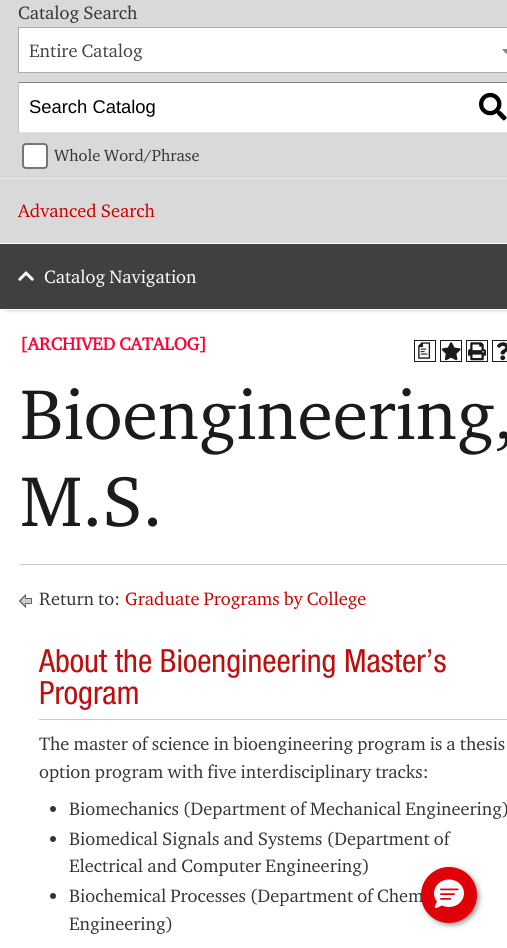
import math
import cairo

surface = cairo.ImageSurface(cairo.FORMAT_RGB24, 507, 948)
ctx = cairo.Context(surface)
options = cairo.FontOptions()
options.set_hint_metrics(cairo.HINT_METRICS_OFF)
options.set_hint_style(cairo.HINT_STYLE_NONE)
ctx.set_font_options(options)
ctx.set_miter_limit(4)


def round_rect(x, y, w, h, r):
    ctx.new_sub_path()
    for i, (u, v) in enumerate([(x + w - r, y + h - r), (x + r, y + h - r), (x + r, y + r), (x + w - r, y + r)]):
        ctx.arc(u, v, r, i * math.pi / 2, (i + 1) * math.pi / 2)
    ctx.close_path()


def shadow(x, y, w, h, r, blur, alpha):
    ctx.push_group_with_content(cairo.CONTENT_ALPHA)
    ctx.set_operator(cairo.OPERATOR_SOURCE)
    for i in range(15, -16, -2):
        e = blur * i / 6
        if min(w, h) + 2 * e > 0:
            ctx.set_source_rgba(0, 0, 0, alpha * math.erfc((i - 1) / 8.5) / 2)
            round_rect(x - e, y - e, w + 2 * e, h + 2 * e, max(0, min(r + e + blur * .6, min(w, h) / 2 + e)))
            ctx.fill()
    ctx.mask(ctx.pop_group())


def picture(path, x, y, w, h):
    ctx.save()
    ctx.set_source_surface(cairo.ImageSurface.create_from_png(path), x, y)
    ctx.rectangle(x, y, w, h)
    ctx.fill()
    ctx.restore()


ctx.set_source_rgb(1, 1, 1)
ctx.paint()
ctx.set_source_rgb(0.655, 0.655, 0.655)
shadow(5, -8, 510, 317, 0, 2.5, 1)
ctx.set_source_rgb(0.851, 0.851, 0.851)
ctx.rectangle(0, 0, 507, 243)
ctx.fill()
ctx.set_source_rgb(1, 1, 1)
ctx.rectangle(0, 243, 507, 1)
ctx.fill()
ctx.select_font_face("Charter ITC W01")
ctx.set_font_size(18.4)
ctx.set_source_rgb(0.208, 0.208, 0.208)
ctx.move_to(18, 19)
ctx.show_text("Catalog Search")
ctx.set_source_rgb(1, 1, 1)
ctx.rectangle(18.5, 27.5, 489, 45)
ctx.fill_preserve()
ctx.set_source_rgb(0.667, 0.667, 0.667)
ctx.set_line_width(1)
ctx.stroke()
ctx.set_source_rgb(0.267, 0.267, 0.267)
ctx.move_to(29, 57)
ctx.show_text("Entire Catalog")
ctx.set_source_rgb(0.533, 0.533, 0.533)
ctx.new_path()
ctx.move_to(502, 49)
ctx.line_to(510, 49)
ctx.line_to(506, 54)
ctx.close_path()
ctx.fill()
ctx.set_source_rgb(1, 1, 1)
ctx.rectangle(19, 83, 488, 49)
ctx.fill()
ctx.set_source_rgb(0.518, 0.518, 0.518)
ctx.rectangle(18, 82, 489, 1)
ctx.fill()
ctx.set_source_rgb(0.882, 0.882, 0.882)
ctx.rectangle(18, 132, 489, 1)
ctx.fill()
ctx.set_source_rgb(0.757, 0.757, 0.757)
ctx.rectangle(18, 82, 1, 51)
ctx.fill()
ctx.select_font_face("Liberation Sans")
ctx.set_source_rgb(0, 0, 0)
ctx.move_to(29, 113)
ctx.show_text("Search Catalog")
picture("img1.png", 479, 92, 28, 29)
ctx.set_source_rgb(1, 1, 1)
round_rect(23, 144, 24, 24, 3)
ctx.fill_preserve()
ctx.set_source_rgb(0.463, 0.463, 0.463)
ctx.set_line_width(2)
ctx.stroke()
ctx.select_font_face("Charter ITC W01")
ctx.set_font_size(16.5)
ctx.set_source_rgb(0.208, 0.208, 0.208)
ctx.move_to(54, 161)
ctx.show_text("Whole Word/Phrase")
ctx.set_source_rgb(0.925, 0.925, 0.925)
ctx.rectangle(0, 178, 507, 1)
ctx.fill()
ctx.set_font_size(18.4)
ctx.set_source_rgb(0.8, 0, 0)
ctx.move_to(18, 217)
ctx.show_text("Advanced Search")
ctx.set_source_rgb(0.251, 0.251, 0.251)
ctx.rectangle(0, 244, 507, 65)
ctx.fill()
ctx.set_source_rgb(1, 1, 1)
ctx.rectangle(0, 309, 507, 1)
ctx.fill()
picture("img2.png", 18, 271, 16, 10)
ctx.move_to(44, 283)
ctx.show_text("Catalog Navigation")
ctx.select_font_face("Charter ITC W01", cairo.FONT_SLANT_NORMAL, cairo.FONT_WEIGHT_BOLD)
ctx.set_font_size(18)
ctx.set_source_rgb(1, 0, 0.2)
ctx.move_to(20, 350)
ctx.show_text("[ARCHIVED CATALOG]")
ctx.rectangle(414.5, 340.5, 21, 21)
ctx.set_source_rgb(0.106, 0.106, 0.106)
ctx.set_line_width(1)
ctx.stroke()
ctx.select_font_face("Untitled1 Medium")
ctx.move_to(415, 356)
ctx.show_text("a")
ctx.rectangle(440.5, 340.5, 21, 21)
ctx.stroke()
picture("img3.png", 441, 342, 20, 19)
ctx.rectangle(466.5, 340.5, 21, 21)
ctx.stroke()
picture("img4.png", 468, 342, 18, 19)
ctx.rectangle(492.5, 340.5, 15, 21)
ctx.stroke()
picture("img5.png", 497, 342, 10, 19)
ctx.select_font_face("Charter ITC W01")
ctx.set_font_size(72)
ctx.move_to(20, 439)
ctx.show_text("Bioengineering,")
ctx.move_to(20, 526)
ctx.show_text("M.S.")
ctx.set_source_rgb(0.788, 0.788, 0.788)
ctx.rectangle(20, 564, 487, 1)
ctx.fill()
picture("img6.png", 19, 594, 13, 14)
ctx.set_font_size(18.4)
ctx.set_source_rgb(0.208, 0.208, 0.208)
ctx.move_to(39, 605)
ctx.show_text("Return to:")
ctx.set_source_rgb(0.8, 0, 0)
ctx.move_to(125, 605)
ctx.show_text("Graduate Programs by College")
ctx.select_font_face("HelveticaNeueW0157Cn")
ctx.set_font_size(32)
ctx.set_source_rgb(0.741, 0.059, 0.059)
ctx.move_to(39, 672)
ctx.show_text("About the Bioengineering Master’s")
ctx.move_to(39, 704)
ctx.show_text("Program")
ctx.set_source_rgb(0.788, 0.788, 0.788)
ctx.rectangle(39, 719, 468, 1)
ctx.fill()
ctx.select_font_face("Charter ITC W01")
ctx.set_font_size(18.4)
ctx.set_source_rgb(0.208, 0.208, 0.208)
ctx.move_to(39, 750)
ctx.show_text("The master of science in bioengineering program is a thesis")
ctx.move_to(39, 778)
ctx.show_text("option program with five interdisciplinary tracks:")
ctx.new_path()
ctx.arc(53, 809, 3, 0, 2 * math.pi)
ctx.fill()
ctx.move_to(69, 815)
ctx.show_text("Biomechanics (Department of Mechanical Engineering)")
ctx.new_path()
ctx.arc(53, 839, 3, 0, 2 * math.pi)
ctx.fill()
ctx.move_to(69, 845)
ctx.show_text("Biomedical Signals and Systems (Department of")
ctx.move_to(69, 872)
ctx.show_text("Electrical and Computer Engineering)")
ctx.new_path()
ctx.arc(53, 896, 3, 0, 2 * math.pi)
ctx.fill()
ctx.move_to(69, 902)
ctx.show_text("Biochemical Processes (Department of Chem")
ctx.move_to(69, 930)
ctx.show_text("Engineering)")
ctx.set_source_rgb(0.176, 0.176, 0.176)
shadow(423, 869, 56, 56, 28, 2.5, 0.5)
ctx.set_source_rgb(0.878, 0, 0.031)
ctx.arc(449, 895, 28, 0, 2 * math.pi)
ctx.fill()
picture("img7.png", 434, 879, 30, 29)
surface.write_to_png("page.png")
